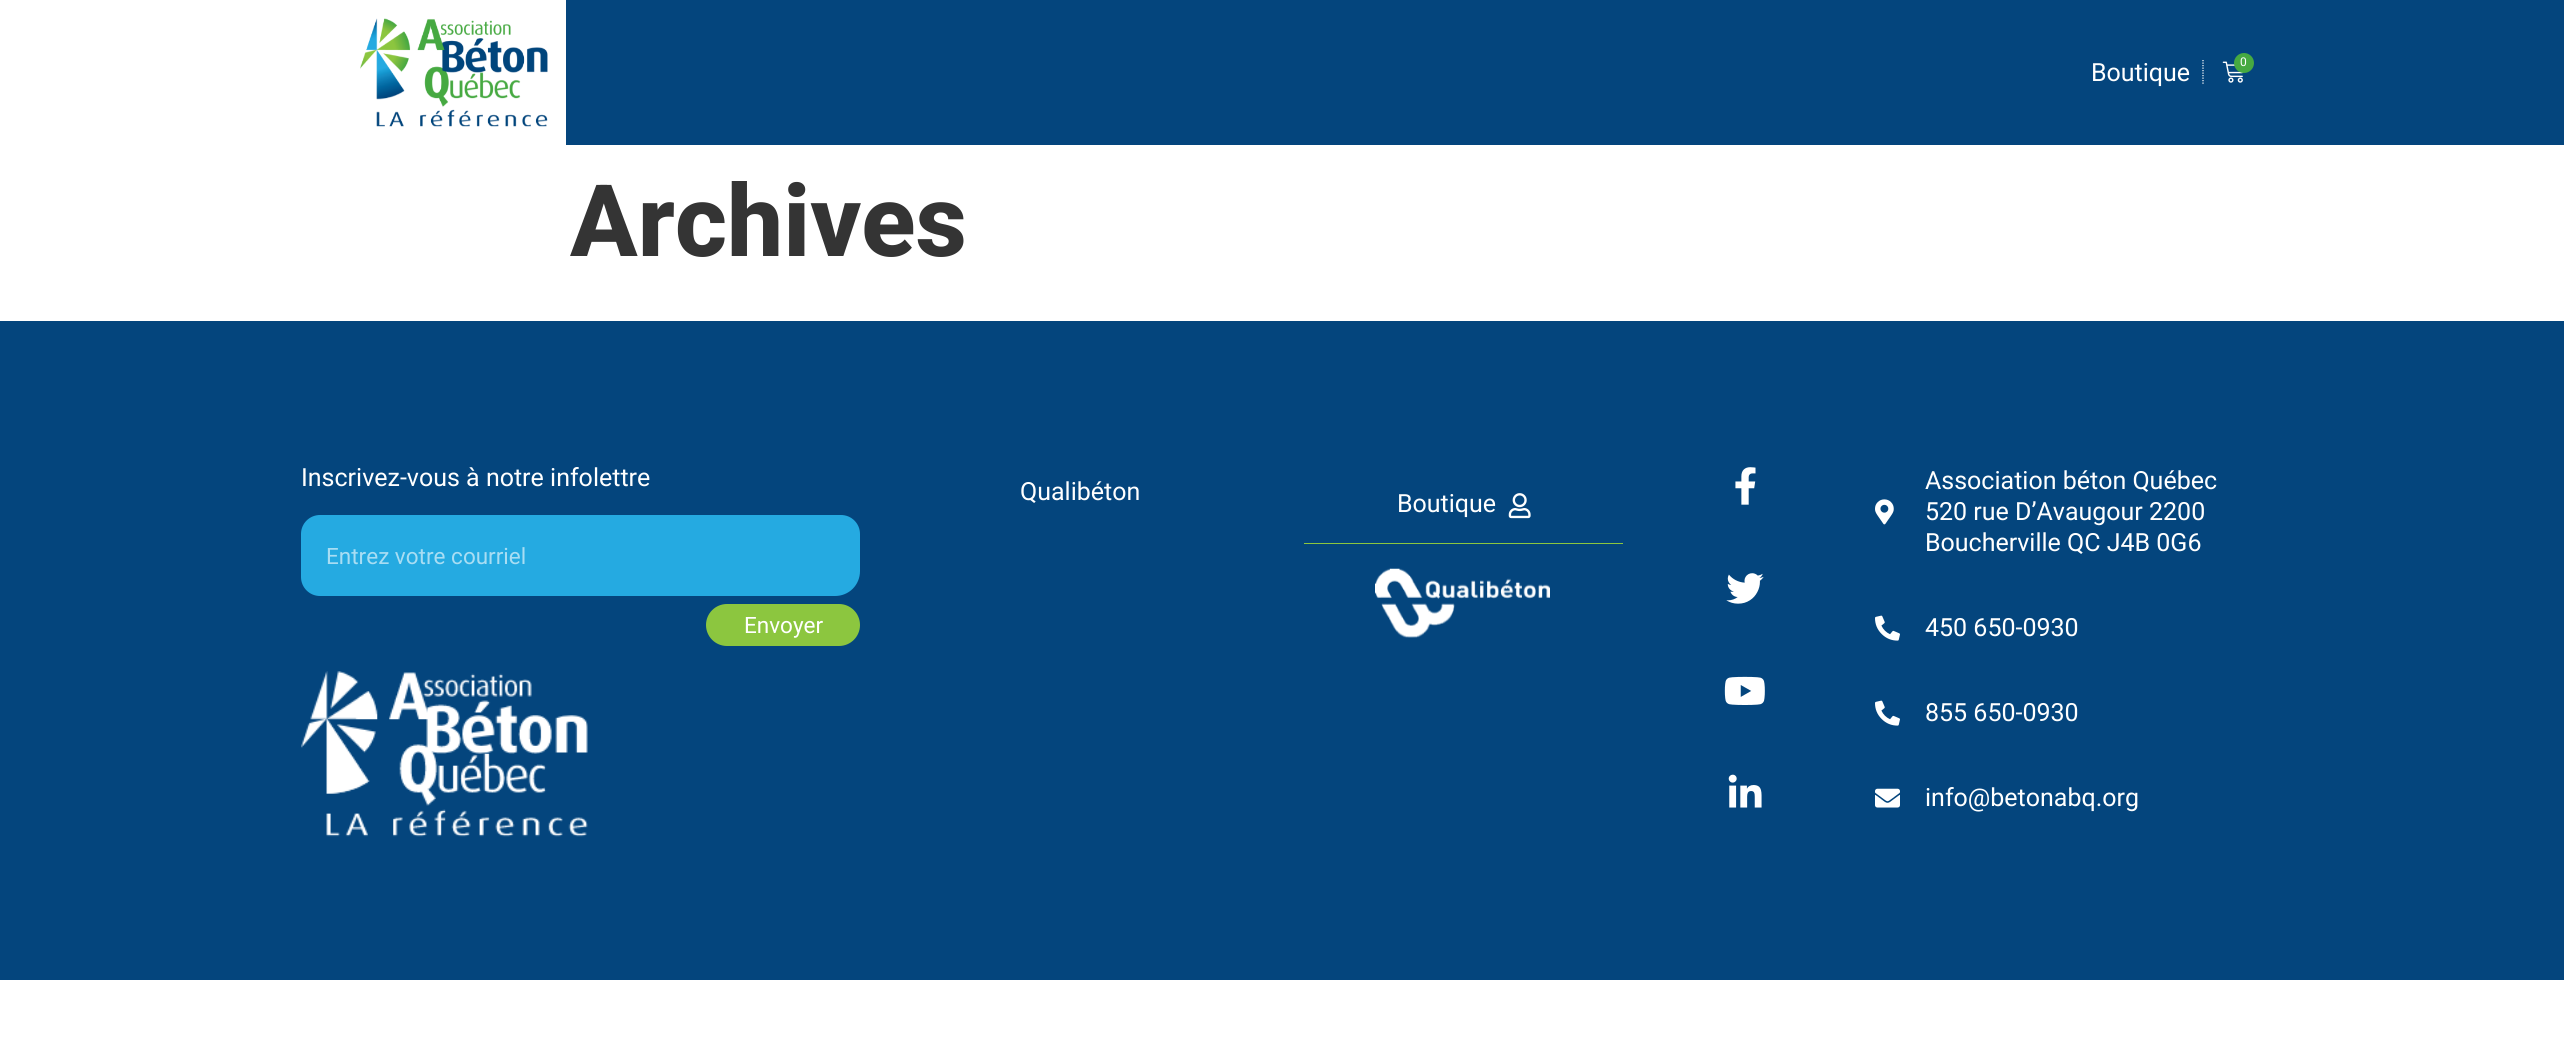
import math
import cairo

surface = cairo.ImageSurface(cairo.FORMAT_RGB24, 2564, 1043)
ctx = cairo.Context(surface)
options = cairo.FontOptions()
options.set_hint_metrics(cairo.HINT_METRICS_OFF)
options.set_hint_style(cairo.HINT_STYLE_NONE)
ctx.set_font_options(options)
ctx.set_miter_limit(4)


def round_rect(x, y, w, h, r):
    ctx.new_sub_path()
    for i, (u, v) in enumerate([(x + w - r, y + h - r), (x + r, y + h - r), (x + r, y + r), (x + w - r, y + r)]):
        ctx.arc(u, v, r, i * math.pi / 2, (i + 1) * math.pi / 2)
    ctx.close_path()


def picture(path, x, y, w, h):
    ctx.save()
    ctx.set_source_surface(cairo.ImageSurface.create_from_png(path), x, y)
    ctx.rectangle(x, y, w, h)
    ctx.fill()
    ctx.restore()


ctx.set_source_rgb(1, 1, 1)
ctx.paint()
picture("img1.png", 360, 18, 188, 109)
ctx.set_source_rgb(0.016, 0.271, 0.49)
ctx.rectangle(566, 0, 1998, 145)
ctx.fill()
picture("img2.png", 2222, 61, 22, 22)
ctx.set_source_rgb(0.275, 0.663, 0.255)
ctx.arc(2244, 63, 10, 0, 2 * math.pi)
ctx.fill()
ctx.select_font_face("Roboto")
ctx.set_font_size(12)
ctx.set_source_rgb(1, 1, 1)
ctx.move_to(2240, 66)
ctx.show_text("0")
ctx.new_path()
ctx.move_to(2203, 60)
ctx.line_to(2203, 85)
ctx.set_line_width(1.2)
ctx.set_dash([1.25, 1.25])
ctx.stroke()
ctx.set_font_size(25)
ctx.move_to(2091, 81)
ctx.show_text("Boutique")
ctx.select_font_face("Roboto ExtraBold")
ctx.set_font_size(100)
ctx.set_source_rgb(0.204, 0.204, 0.204)
ctx.move_to(570, 256)
ctx.show_text("Archives")
ctx.set_source_rgb(0.016, 0.271, 0.49)
ctx.rectangle(0, 321, 2564, 659)
ctx.fill()
ctx.select_font_face("Roboto")
ctx.set_font_size(25)
ctx.set_source_rgb(1, 1, 1)
ctx.move_to(301, 486)
ctx.show_text("Inscrivez-vous à notre infolettre")
ctx.set_source_rgb(0.145, 0.667, 0.882)
ctx.new_path()
ctx.move_to(320, 515)
ctx.line_to(841, 515)
ctx.curve_to(851.5, 515, 860, 523.5, 860, 534)
ctx.line_to(860, 571)
ctx.curve_to(860, 585, 849, 596, 835, 596)
ctx.line_to(320, 596)
ctx.curve_to(309.5, 596, 301, 587.5, 301, 577)
ctx.line_to(301, 534)
ctx.curve_to(301, 523.5, 309.5, 515, 320, 515)
ctx.close_path()
ctx.fill()
ctx.set_font_size(22.5)
ctx.set_source_rgb(0.659, 0.867, 0.953)
ctx.move_to(326, 564)
ctx.show_text("Entrez votre courriel")
ctx.set_source_rgb(0.549, 0.776, 0.247)
round_rect(706, 604, 154, 42, 21)
ctx.fill()
ctx.set_source_rgb(1, 1, 1)
ctx.move_to(744, 633)
ctx.show_text("Envoyer")
picture("img3.png", 301, 671, 287, 166)
ctx.set_font_size(25)
ctx.move_to(1020, 500)
ctx.show_text("Qualibéton")
ctx.set_source_rgb(0.549, 0.776, 0.247)
ctx.rectangle(1304, 543, 319, 1)
ctx.fill()
ctx.set_source_rgb(1, 1, 1)
ctx.move_to(1397, 512)
ctx.show_text("Boutique")
picture("img4.png", 1508, 493, 23, 26)
picture("img5.png", 1375, 568, 175, 70)
picture("img6.png", 1735, 467, 21, 38)
picture("img7.png", 1726, 573, 38, 31)
picture("img8.png", 1724, 676, 41, 29)
picture("img9.png", 1728, 774, 34, 34)
picture("img10.png", 1875, 499, 19, 26)
ctx.move_to(1925, 489)
ctx.show_text("Association béton Québec")
ctx.move_to(1925, 520)
ctx.show_text("520 rue D’Avaugour 2200")
ctx.move_to(1925, 551)
ctx.show_text("Boucherville QC J4B 0G6")
picture("img11.png", 1875, 615, 25, 26)
ctx.move_to(1925, 636)
ctx.show_text("450 650-0930")
picture("img11.png", 1875, 700, 25, 26)
ctx.move_to(1925, 721)
ctx.show_text("855 650-0930")
picture("img12.png", 1875, 788, 25, 20)
ctx.move_to(1925, 806)
ctx.show_text("info@betonabq.org")
surface.write_to_png("page.png")
